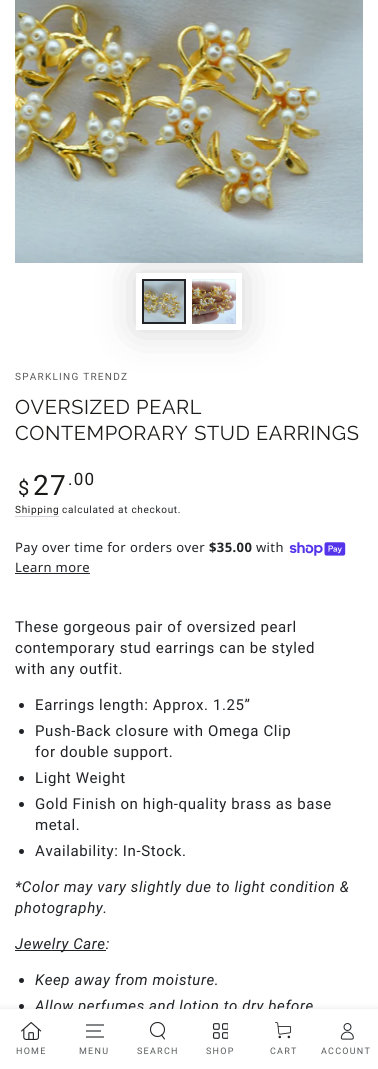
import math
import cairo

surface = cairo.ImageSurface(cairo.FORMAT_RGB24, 378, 1069)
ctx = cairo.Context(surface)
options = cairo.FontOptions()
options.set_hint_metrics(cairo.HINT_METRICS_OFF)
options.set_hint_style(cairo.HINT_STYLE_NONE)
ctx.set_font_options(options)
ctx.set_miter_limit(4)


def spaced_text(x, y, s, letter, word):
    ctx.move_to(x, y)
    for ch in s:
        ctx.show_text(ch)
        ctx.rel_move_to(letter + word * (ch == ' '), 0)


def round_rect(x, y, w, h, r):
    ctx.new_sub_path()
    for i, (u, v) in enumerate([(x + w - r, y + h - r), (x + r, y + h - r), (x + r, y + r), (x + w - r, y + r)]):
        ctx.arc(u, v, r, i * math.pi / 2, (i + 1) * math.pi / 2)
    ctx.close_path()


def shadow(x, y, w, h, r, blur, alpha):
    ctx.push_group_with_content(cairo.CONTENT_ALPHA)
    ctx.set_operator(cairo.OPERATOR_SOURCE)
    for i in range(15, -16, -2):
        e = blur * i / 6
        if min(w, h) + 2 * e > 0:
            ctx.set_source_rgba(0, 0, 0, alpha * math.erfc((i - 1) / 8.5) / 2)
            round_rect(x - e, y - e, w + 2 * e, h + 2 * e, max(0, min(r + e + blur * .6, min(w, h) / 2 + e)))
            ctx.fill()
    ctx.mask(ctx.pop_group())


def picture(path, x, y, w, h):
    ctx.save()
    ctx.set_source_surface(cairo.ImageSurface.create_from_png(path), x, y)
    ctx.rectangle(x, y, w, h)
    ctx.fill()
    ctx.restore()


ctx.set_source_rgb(1, 1, 1)
ctx.paint()
picture("img1.png", 15, 0, 348, 263)
ctx.save()
ctx.set_fill_rule(cairo.FILL_RULE_EVEN_ODD)
ctx.new_path()
ctx.move_to(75, 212)
ctx.line_to(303, 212)
ctx.line_to(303, 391)
ctx.line_to(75, 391)
ctx.close_path()
ctx.move_to(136, 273)
ctx.line_to(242, 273)
ctx.line_to(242, 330)
ctx.line_to(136, 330)
ctx.close_path()
ctx.clip()
ctx.set_source_rgb(0.129, 0.137, 0.149)
shadow(136, 273, 106, 57, 0, 20, 0.2)
ctx.restore()
picture("img2.png", 144, 281, 40, 41)
ctx.rectangle(143, 280, 42, 43)
ctx.set_source_rgb(0.129, 0.137, 0.149)
ctx.stroke()
picture("img3.png", 192, 279, 44, 45)
ctx.rectangle(192.5, 279.5, 43, 44)
ctx.set_source_rgba(0.129, 0.137, 0.149, 0.04)
ctx.set_line_width(1)
ctx.stroke()
ctx.select_font_face("Roboto")
ctx.set_font_size(10)
ctx.set_source_rgb(0.345, 0.353, 0.361)
spaced_text(15, 380, "SPARKLING TRENDZ", 1.25, 0)
ctx.select_font_face("Raleway")
ctx.set_font_size(20)
ctx.set_source_rgb(0.102, 0.106, 0.094)
spaced_text(15, 414, "OVERSIZED PEARL", 0.6, 0)
spaced_text(15, 440, "CONTEMPORARY STUD EARRINGS", 0.6, 0)
ctx.select_font_face("Roboto")
spaced_text(18, 495, "$", 1.25, 0)
ctx.set_font_size(28)
spaced_text(33, 495, "27", 1.25, 0)
ctx.set_font_size(17)
spaced_text(68, 485, ".00", 1.25, 0)
ctx.set_font_size(10)
spaced_text(15, 513, "Shipping", 0.7, 0)
ctx.set_source_rgb(0.824, 0.835, 0.851)
ctx.rectangle(15, 516, 44, 1)
ctx.fill()
ctx.set_source_rgb(0.129, 0.137, 0.149)
spaced_text(62, 513, "calculated at checkout.", 0.7, 0)
ctx.select_font_face("Noto Sans")
ctx.set_font_size(13)
spaced_text(15, 552, "Pay over time for orders over", 0.4, 0)
ctx.select_font_face("Noto Sans", cairo.FONT_SLANT_NORMAL, cairo.FONT_WEIGHT_BOLD)
spaced_text(209, 552, "$35.00", 0.4, 0)
ctx.select_font_face("Noto Sans")
spaced_text(256, 552, "with", 0.4, 0)
picture("img4.png", 289, 542, 57, 14)
spaced_text(15, 572, "Learn more", 0.4, 0)
ctx.rectangle(15, 573, 75, 1)
ctx.fill()
ctx.select_font_face("Roboto")
ctx.set_font_size(15)
spaced_text(15, 632, "These gorgeous pair of oversized pearl", 0.6, 0)
spaced_text(15, 653, "contemporary stud earrings can be styled", 0.6, 0)
spaced_text(15, 674, "with any outfit.", 0.6, 0)
ctx.new_path()
ctx.arc(21.5, 705.5, 2.5, 0, 2 * math.pi)
ctx.fill()
spaced_text(35, 710, "Earrings length: Approx. 1.25”", 0.6, 0)
ctx.new_path()
ctx.arc(21.5, 731.5, 2.5, 0, 2 * math.pi)
ctx.fill()
spaced_text(35, 736, "Push-Back closure with Omega Clip", 0.6, 0)
spaced_text(35, 757, "for double support.", 0.6, 0)
ctx.new_path()
ctx.arc(21.5, 778.5, 2.5, 0, 2 * math.pi)
ctx.fill()
spaced_text(35, 783, "Light Weight", 0.6, 0)
ctx.new_path()
ctx.arc(21.5, 804.5, 2.5, 0, 2 * math.pi)
ctx.fill()
spaced_text(35, 809, "Gold Finish on high-quality brass as base", 0.6, 0)
spaced_text(35, 830, "metal.", 0.6, 0)
ctx.new_path()
ctx.arc(21.5, 851.5, 2.5, 0, 2 * math.pi)
ctx.fill()
spaced_text(35, 856, "Availability: In-Stock.", 0.6, 0)
ctx.select_font_face("Roboto", cairo.FONT_SLANT_ITALIC)
spaced_text(15, 892, "*Color may vary slightly due to light condition &", 0.6, 0)
spaced_text(15, 913, "photography.", 0.6, 0)
ctx.rectangle(15, 950, 91, 1)
ctx.fill()
spaced_text(15, 949, "Jewelry Care:", 0.6, 0)
ctx.new_path()
ctx.arc(21.5, 980.5, 2.5, 0, 2 * math.pi)
ctx.fill()
spaced_text(35, 985, "Keep away from moisture.", 0.6, 0)
ctx.new_path()
ctx.arc(21.5, 1006.5, 2.5, 0, 2 * math.pi)
ctx.fill()
spaced_text(35, 1011, "Allow perfumes and lotion to dry before", 0.6, 0)
ctx.set_source_rgb(0.129, 0.137, 0.149)
shadow(0, 1010, 378, 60, 0, 4, 0.15)
ctx.set_source_rgb(1, 1, 1)
ctx.rectangle(0, 1009, 378, 60)
ctx.fill()
picture("img5.png", 21, 1022, 21, 18)
ctx.select_font_face("Roboto")
ctx.set_font_size(9)
ctx.set_source_rgb(0.345, 0.353, 0.361)
spaced_text(16, 1054, "HOME", 1.25, 0)
ctx.new_path()
ctx.move_to(86, 1037)
ctx.line_to(104, 1037)
ctx.move_to(86, 1031)
ctx.line_to(101, 1031)
ctx.move_to(86, 1025)
ctx.line_to(104, 1025)
ctx.set_source_rgb(0.129, 0.137, 0.149)
ctx.set_line_width(1.1)
ctx.stroke()
ctx.set_source_rgb(0.345, 0.353, 0.361)
spaced_text(79, 1054, "MENU", 1.25, 0)
ctx.new_path()
ctx.arc(157.5, 1029.5, 7, 0, 2 * math.pi)
ctx.set_source_rgb(0.129, 0.137, 0.149)
ctx.stroke()
ctx.new_path()
ctx.move_to(161.5, 1035)
ctx.line_to(164.5, 1039)
ctx.set_line_cap(cairo.LINE_CAP_ROUND)
ctx.stroke()
ctx.set_source_rgb(0.345, 0.353, 0.361)
spaced_text(137, 1054, "SEARCH", 1.25, 0)
picture("img6.png", 213, 1023, 15, 16)
spaced_text(206, 1054, "SHOP", 1.25, 0)
picture("img7.png", 275, 1022, 17, 17)
spaced_text(270, 1054, "CART", 1.25, 0)
picture("img8.png", 340, 1023, 14, 17)
spaced_text(321, 1054, "ACCOUNT", 1.25, 0)
surface.write_to_png("page.png")
